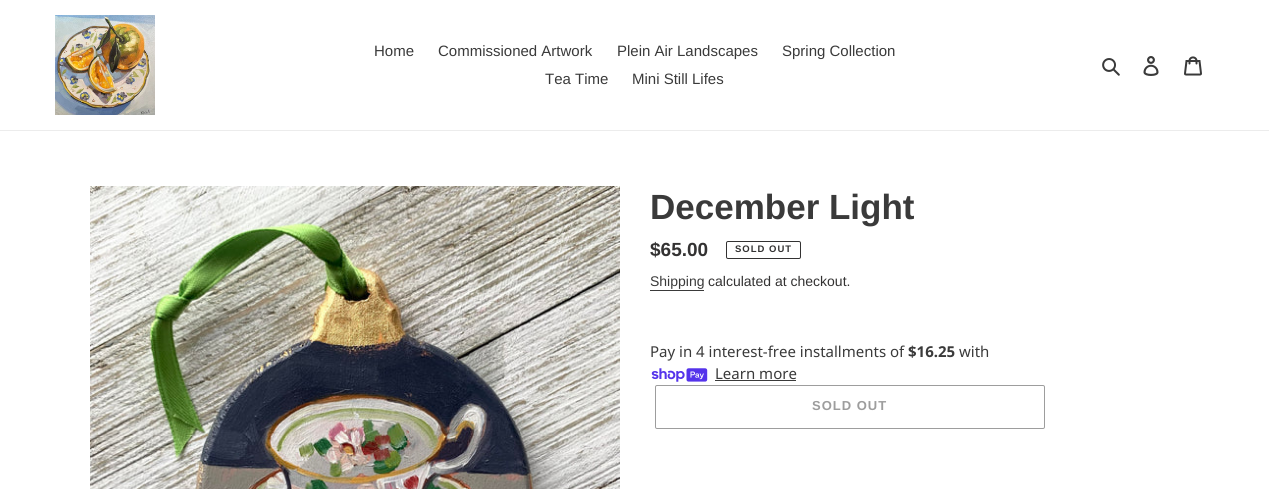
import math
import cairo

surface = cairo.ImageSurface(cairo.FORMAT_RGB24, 1269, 489)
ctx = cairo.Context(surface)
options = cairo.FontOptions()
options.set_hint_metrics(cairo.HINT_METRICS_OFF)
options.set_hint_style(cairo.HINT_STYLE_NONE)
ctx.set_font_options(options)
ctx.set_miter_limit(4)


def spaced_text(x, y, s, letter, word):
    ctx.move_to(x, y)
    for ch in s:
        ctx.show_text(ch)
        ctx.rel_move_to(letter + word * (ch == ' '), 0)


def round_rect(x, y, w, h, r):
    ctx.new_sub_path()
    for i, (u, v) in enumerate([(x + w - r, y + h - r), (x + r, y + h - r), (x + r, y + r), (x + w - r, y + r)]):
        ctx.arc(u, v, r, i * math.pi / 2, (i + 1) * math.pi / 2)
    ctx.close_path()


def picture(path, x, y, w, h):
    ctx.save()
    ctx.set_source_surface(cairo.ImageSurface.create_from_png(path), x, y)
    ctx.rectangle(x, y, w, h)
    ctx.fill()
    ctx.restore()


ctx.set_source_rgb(1, 1, 1)
ctx.paint()
ctx.set_source_rgb(0.922, 0.922, 0.922)
ctx.rectangle(0, 130, 1269, 1)
ctx.fill()
picture("img1.png", 55, 15, 100, 100)
ctx.select_font_face("Liberation Sans")
ctx.set_font_size(15)
ctx.set_source_rgb(0.227, 0.227, 0.227)
ctx.move_to(374, 56)
ctx.show_text("Home")
ctx.move_to(438, 56)
ctx.show_text("Commissioned Artwork")
ctx.move_to(617, 56)
ctx.show_text("Plein Air Landscapes")
ctx.move_to(782, 56)
ctx.show_text("Spring Collection")
ctx.move_to(545, 84)
ctx.show_text("Tea Time")
ctx.move_to(632, 84)
ctx.show_text("Mini Still Lifes")
picture("img2.png", 1102, 58, 18, 18)
picture("img3.png", 1143, 56, 16, 20)
picture("img4.png", 1184, 56, 18, 20)
picture("img5.png", 90, 186, 530, 303)
ctx.select_font_face("Liberation Sans", cairo.FONT_SLANT_NORMAL, cairo.FONT_WEIGHT_BOLD)
ctx.set_font_size(35)
ctx.move_to(650, 219)
ctx.show_text("December Light")
ctx.set_font_size(19)
ctx.set_source_rgb(0.2, 0.196, 0.196)
ctx.move_to(650, 256)
ctx.show_text("$65.00")
round_rect(726.5, 241.5, 74, 17, 1.5)
ctx.set_line_width(1)
ctx.stroke()
ctx.set_font_size(9.5)
spaced_text(735, 252, "SOLD OUT", 1, 0)
ctx.select_font_face("Liberation Sans")
ctx.set_font_size(14)
ctx.set_source_rgb(0.227, 0.227, 0.227)
ctx.move_to(650, 286)
ctx.show_text("Shipping")
ctx.rectangle(650, 290, 54, 1)
ctx.fill()
ctx.set_source_rgb(0.2, 0.196, 0.196)
ctx.move_to(708, 286)
ctx.show_text("calculated at checkout.")
ctx.select_font_face("Noto Sans")
ctx.set_font_size(15)
ctx.set_source_rgb(0.227, 0.227, 0.227)
ctx.move_to(650, 357)
ctx.show_text("Pay in 4 interest-free installments of")
ctx.select_font_face("Noto Sans", cairo.FONT_SLANT_NORMAL, cairo.FONT_WEIGHT_BOLD)
ctx.move_to(908, 357)
ctx.show_text("$16.25")
ctx.select_font_face("Noto Sans")
ctx.move_to(959, 357)
ctx.show_text("with")
picture("img6.png", 651, 368, 57, 14)
ctx.move_to(715, 379)
ctx.show_text("Learn more")
ctx.rectangle(715, 380, 81, 1)
ctx.fill()
round_rect(655.5, 385.5, 389, 43, 1.5)
ctx.set_source_rgb(0.616, 0.616, 0.616)
ctx.stroke()
ctx.select_font_face("Liberation Sans", cairo.FONT_SLANT_NORMAL, cairo.FONT_WEIGHT_BOLD)
ctx.set_font_size(13)
spaced_text(812, 410, "SOLD OUT", 1, 0)
surface.write_to_png("page.png")
